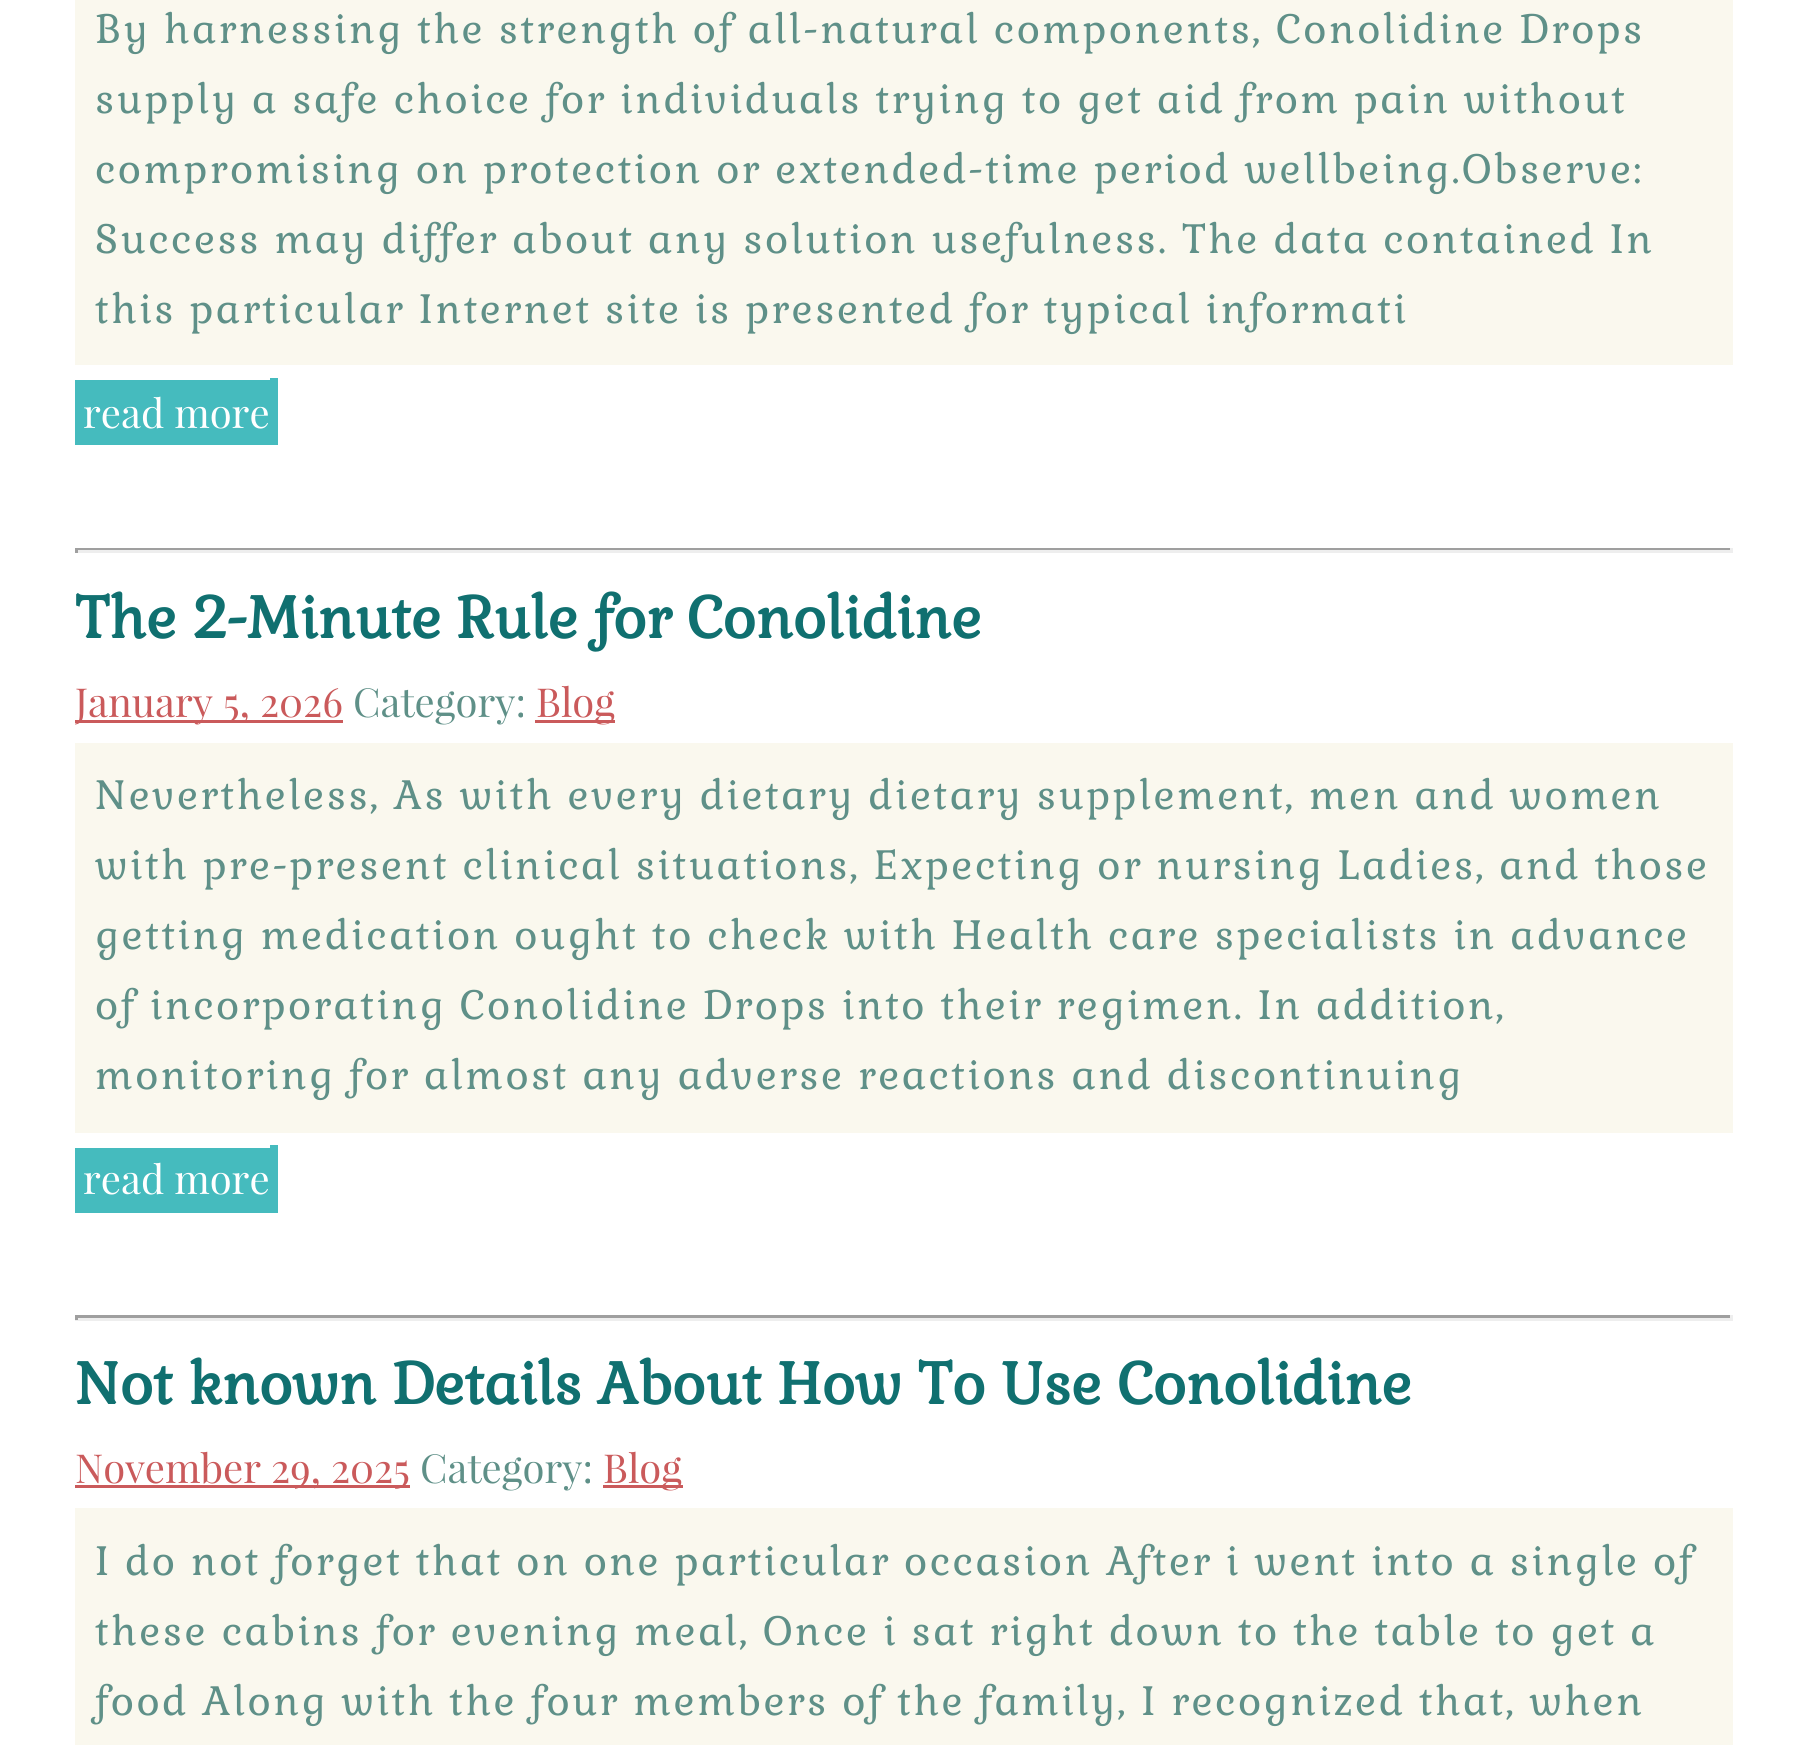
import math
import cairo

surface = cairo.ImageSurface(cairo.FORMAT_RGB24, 1807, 1745)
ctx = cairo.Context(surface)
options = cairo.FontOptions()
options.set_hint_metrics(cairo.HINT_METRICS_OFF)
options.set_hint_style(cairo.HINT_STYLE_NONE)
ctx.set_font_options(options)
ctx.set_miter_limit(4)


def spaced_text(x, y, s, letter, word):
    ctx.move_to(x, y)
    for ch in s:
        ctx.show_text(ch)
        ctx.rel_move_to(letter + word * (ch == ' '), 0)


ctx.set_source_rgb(1, 1, 1)
ctx.paint()
ctx.set_source_rgb(0.98, 0.969, 0.933)
ctx.rectangle(75, 0, 1658, 365)
ctx.fill()
ctx.select_font_face("Gabriela")
ctx.set_font_size(40)
ctx.set_source_rgb(0.373, 0.565, 0.533)
spaced_text(95, 43, "By harnessing the strength of all-natural components, Conolidine Drops", 2.5, 0)
spaced_text(95, 113, "supply a safe choice for individuals trying to get aid from pain without", 2.5, 0)
spaced_text(95, 183, "compromising on protection or extended-time period wellbeing.Observe:", 2.5, 0)
spaced_text(95, 253, "Success may differ about any solution usefulness. The data contained In", 2.5, 0)
spaced_text(95, 323, "this particular Internet site is presented for typical informati", 2.5, 0)
ctx.set_source_rgb(0.271, 0.733, 0.745)
ctx.rectangle(75, 380, 195, 65)
ctx.fill()
ctx.select_font_face("Playfair Display")
ctx.set_source_rgb(1, 1, 1)
ctx.move_to(83, 428)
ctx.show_text("read more")
ctx.set_source_rgb(0.271, 0.733, 0.745)
ctx.rectangle(270, 378, 8, 67)
ctx.fill()
ctx.set_source_rgb(0.624, 0.624, 0.624)
ctx.rectangle(75, 548, 1658, 2)
ctx.fill()
ctx.set_source_rgb(0.933, 0.933, 0.933)
ctx.rectangle(1730, 548, 3, 5)
ctx.fill()
ctx.rectangle(75, 550, 1658, 3)
ctx.fill()
ctx.set_source_rgb(0.624, 0.624, 0.624)
ctx.rectangle(75, 548, 3, 5)
ctx.fill()
ctx.select_font_face("Gabriela", cairo.FONT_SLANT_NORMAL, cairo.FONT_WEIGHT_BOLD)
ctx.set_font_size(57.5)
ctx.set_source_rgb(0.063, 0.439, 0.439)
ctx.move_to(75, 638)
ctx.show_text("The 2-Minute Rule for Conolidine")
ctx.set_source_rgb(0.792, 0.353, 0.357)
ctx.rectangle(75, 720, 268, 3)
ctx.fill()
ctx.save()
ctx.rectangle(75, 0, 1658, 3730)
ctx.clip()
ctx.select_font_face("Playfair Display")
ctx.set_font_size(40)
ctx.move_to(75, 717)
ctx.show_text("January 5, 2026")
ctx.restore()
ctx.select_font_face("Playfair Display")
ctx.set_font_size(40)
ctx.set_source_rgb(0.373, 0.565, 0.533)
ctx.move_to(353, 717)
ctx.show_text("Category:")
ctx.set_source_rgb(0.792, 0.353, 0.357)
ctx.rectangle(535, 720, 80, 3)
ctx.fill()
ctx.move_to(536, 717)
ctx.show_text("Blog")
ctx.set_source_rgb(0.98, 0.969, 0.933)
ctx.rectangle(75, 743, 1658, 390)
ctx.fill()
ctx.select_font_face("Gabriela")
ctx.set_source_rgb(0.373, 0.565, 0.533)
spaced_text(95, 809, "Nevertheless, As with every dietary dietary supplement, men and women", 2.5, 0)
spaced_text(95, 879, "with pre-present clinical situations, Expecting or nursing Ladies, and those", 2.5, 0)
spaced_text(95, 949, "getting medication ought to check with Health care specialists in advance", 2.5, 0)
spaced_text(95, 1019, "of incorporating Conolidine Drops into their regimen. In addition,", 2.5, 0)
spaced_text(95, 1089, "monitoring for almost any adverse reactions and discontinuing", 2.5, 0)
ctx.set_source_rgb(0.271, 0.733, 0.745)
ctx.rectangle(75, 1148, 195, 65)
ctx.fill()
ctx.select_font_face("Playfair Display")
ctx.set_source_rgb(1, 1, 1)
ctx.move_to(83, 1194)
ctx.show_text("read more")
ctx.set_source_rgb(0.271, 0.733, 0.745)
ctx.rectangle(270, 1145, 8, 68)
ctx.fill()
ctx.set_source_rgb(0.624, 0.624, 0.624)
ctx.rectangle(75, 1315, 1658, 3)
ctx.fill()
ctx.set_source_rgb(0.933, 0.933, 0.933)
ctx.rectangle(1730, 1315, 3, 5)
ctx.fill()
ctx.rectangle(75, 1318, 1658, 3)
ctx.fill()
ctx.set_source_rgb(0.624, 0.624, 0.624)
ctx.rectangle(75, 1315, 3, 5)
ctx.fill()
ctx.select_font_face("Gabriela", cairo.FONT_SLANT_NORMAL, cairo.FONT_WEIGHT_BOLD)
ctx.set_font_size(57.5)
ctx.set_source_rgb(0.063, 0.439, 0.439)
ctx.move_to(75, 1404)
ctx.show_text("Not known Details About How To Use Conolidine")
ctx.set_source_rgb(0.792, 0.353, 0.357)
ctx.rectangle(75, 1485, 335, 3)
ctx.fill()
ctx.select_font_face("Playfair Display")
ctx.set_font_size(40)
ctx.move_to(75, 1483)
ctx.show_text("November 29, 2025")
ctx.set_source_rgb(0.373, 0.565, 0.533)
ctx.move_to(420, 1483)
ctx.show_text("Category:")
ctx.set_source_rgb(0.792, 0.353, 0.357)
ctx.rectangle(603, 1485, 80, 3)
ctx.fill()
ctx.move_to(603, 1483)
ctx.show_text("Blog")
ctx.set_source_rgb(0.98, 0.969, 0.933)
ctx.rectangle(75, 1508, 1658, 237)
ctx.fill()
ctx.select_font_face("Gabriela")
ctx.set_source_rgb(0.373, 0.565, 0.533)
spaced_text(95, 1575, "I do not forget that on one particular occasion After i went into a single of", 2.5, 0)
spaced_text(95, 1645, "these cabins for evening meal, Once i sat right down to the table to get a", 2.5, 0)
spaced_text(95, 1715, "food Along with the four members of the family, I recognized that, when", 2.5, 0)
surface.write_to_png("page.png")
